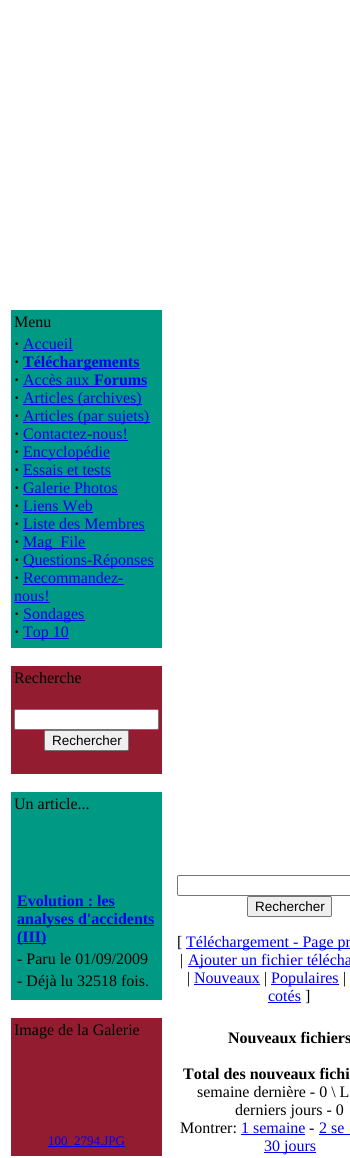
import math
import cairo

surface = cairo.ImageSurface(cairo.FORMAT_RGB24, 350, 1158)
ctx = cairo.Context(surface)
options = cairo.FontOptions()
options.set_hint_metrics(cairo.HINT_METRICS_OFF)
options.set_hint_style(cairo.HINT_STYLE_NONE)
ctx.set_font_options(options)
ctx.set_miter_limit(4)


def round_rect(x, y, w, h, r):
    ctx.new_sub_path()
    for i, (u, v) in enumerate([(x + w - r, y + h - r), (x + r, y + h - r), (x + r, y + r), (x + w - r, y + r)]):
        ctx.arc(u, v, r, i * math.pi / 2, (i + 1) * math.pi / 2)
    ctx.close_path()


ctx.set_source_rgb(1, 1, 1)
ctx.paint()
ctx.set_source_rgb(0, 0.6, 0.514)
ctx.rectangle(11, 310, 151, 338)
ctx.fill()
ctx.select_font_face("Liberation Serif")
ctx.set_font_size(16)
ctx.set_source_rgb(0, 0, 0)
ctx.move_to(14, 327)
ctx.show_text("Menu")
ctx.select_font_face("Liberation Serif", cairo.FONT_SLANT_NORMAL, cairo.FONT_WEIGHT_BOLD)
ctx.move_to(14, 349)
ctx.show_text("·")
ctx.select_font_face("Liberation Serif")
ctx.set_source_rgb(0, 0, 0.933)
ctx.move_to(23, 349)
ctx.show_text("Accueil")
ctx.rectangle(23, 350, 50, 1)
ctx.fill()
ctx.select_font_face("Liberation Serif", cairo.FONT_SLANT_NORMAL, cairo.FONT_WEIGHT_BOLD)
ctx.set_source_rgb(0, 0, 0)
ctx.move_to(14, 367)
ctx.show_text("·")
ctx.set_source_rgb(0, 0, 0.933)
ctx.rectangle(23, 368, 117, 1)
ctx.fill()
ctx.move_to(23, 367)
ctx.show_text("Téléchargements")
ctx.set_source_rgb(0, 0, 0)
ctx.move_to(14, 385)
ctx.show_text("·")
ctx.select_font_face("Liberation Serif")
ctx.set_source_rgb(0, 0, 0.933)
ctx.move_to(23, 385)
ctx.show_text("Accès aux")
ctx.select_font_face("Liberation Serif", cairo.FONT_SLANT_NORMAL, cairo.FONT_WEIGHT_BOLD)
ctx.move_to(94, 385)
ctx.show_text("Forums")
ctx.rectangle(23, 386, 124, 1)
ctx.fill()
ctx.set_source_rgb(0, 0, 0)
ctx.move_to(14, 403)
ctx.show_text("·")
ctx.set_source_rgb(0, 0, 0.933)
ctx.rectangle(23, 404, 119, 1)
ctx.fill()
ctx.select_font_face("Liberation Serif")
ctx.move_to(23, 403)
ctx.show_text("Articles (archives)")
ctx.select_font_face("Liberation Serif", cairo.FONT_SLANT_NORMAL, cairo.FONT_WEIGHT_BOLD)
ctx.set_source_rgb(0, 0, 0)
ctx.move_to(14, 421)
ctx.show_text("·")
ctx.set_source_rgb(0, 0, 0.933)
ctx.rectangle(23, 422, 127, 1)
ctx.fill()
ctx.select_font_face("Liberation Serif")
ctx.move_to(23, 421)
ctx.show_text("Articles (par sujets)")
ctx.select_font_face("Liberation Serif", cairo.FONT_SLANT_NORMAL, cairo.FONT_WEIGHT_BOLD)
ctx.set_source_rgb(0, 0, 0)
ctx.move_to(14, 439)
ctx.show_text("·")
ctx.select_font_face("Liberation Serif")
ctx.set_source_rgb(0, 0, 0.933)
ctx.move_to(23, 439)
ctx.show_text("Contactez-nous!")
ctx.rectangle(23, 440, 105, 1)
ctx.fill()
ctx.select_font_face("Liberation Serif", cairo.FONT_SLANT_NORMAL, cairo.FONT_WEIGHT_BOLD)
ctx.set_source_rgb(0, 0, 0)
ctx.move_to(14, 457)
ctx.show_text("·")
ctx.set_source_rgb(0, 0, 0.933)
ctx.rectangle(23, 458, 87, 1)
ctx.fill()
ctx.select_font_face("Liberation Serif")
ctx.move_to(23, 457)
ctx.show_text("Encyclopédie")
ctx.select_font_face("Liberation Serif", cairo.FONT_SLANT_NORMAL, cairo.FONT_WEIGHT_BOLD)
ctx.set_source_rgb(0, 0, 0)
ctx.move_to(14, 475)
ctx.show_text("·")
ctx.select_font_face("Liberation Serif")
ctx.set_source_rgb(0, 0, 0.933)
ctx.move_to(23, 475)
ctx.show_text("Essais et tests")
ctx.rectangle(23, 476, 88, 1)
ctx.fill()
ctx.select_font_face("Liberation Serif", cairo.FONT_SLANT_NORMAL, cairo.FONT_WEIGHT_BOLD)
ctx.set_source_rgb(0, 0, 0)
ctx.move_to(14, 493)
ctx.show_text("·")
ctx.select_font_face("Liberation Serif")
ctx.set_source_rgb(0, 0, 0.933)
ctx.move_to(23, 493)
ctx.show_text("Galerie Photos")
ctx.rectangle(23, 494, 95, 1)
ctx.fill()
ctx.select_font_face("Liberation Serif", cairo.FONT_SLANT_NORMAL, cairo.FONT_WEIGHT_BOLD)
ctx.set_source_rgb(0, 0, 0)
ctx.move_to(14, 511)
ctx.show_text("·")
ctx.select_font_face("Liberation Serif")
ctx.set_source_rgb(0, 0, 0.933)
ctx.move_to(23, 511)
ctx.show_text("Liens Web")
ctx.rectangle(23, 512, 70, 1)
ctx.fill()
ctx.select_font_face("Liberation Serif", cairo.FONT_SLANT_NORMAL, cairo.FONT_WEIGHT_BOLD)
ctx.set_source_rgb(0, 0, 0)
ctx.move_to(14, 529)
ctx.show_text("·")
ctx.select_font_face("Liberation Serif")
ctx.set_source_rgb(0, 0, 0.933)
ctx.move_to(23, 529)
ctx.show_text("Liste des Membres")
ctx.rectangle(23, 530, 122, 1)
ctx.fill()
ctx.select_font_face("Liberation Serif", cairo.FONT_SLANT_NORMAL, cairo.FONT_WEIGHT_BOLD)
ctx.set_source_rgb(0, 0, 0)
ctx.move_to(14, 547)
ctx.show_text("·")
ctx.set_source_rgb(0, 0, 0.933)
ctx.rectangle(23, 548, 63, 1)
ctx.fill()
ctx.select_font_face("Liberation Serif")
ctx.move_to(23, 547)
ctx.show_text("Mag_File")
ctx.select_font_face("Liberation Serif", cairo.FONT_SLANT_NORMAL, cairo.FONT_WEIGHT_BOLD)
ctx.set_source_rgb(0, 0, 0)
ctx.move_to(14, 565)
ctx.show_text("·")
ctx.set_source_rgb(0, 0, 0.933)
ctx.rectangle(23, 566, 131, 1)
ctx.fill()
ctx.select_font_face("Liberation Serif")
ctx.move_to(23, 565)
ctx.show_text("Questions-Réponses")
ctx.select_font_face("Liberation Serif", cairo.FONT_SLANT_NORMAL, cairo.FONT_WEIGHT_BOLD)
ctx.set_source_rgb(0, 0, 0)
ctx.move_to(14, 583)
ctx.show_text("·")
ctx.select_font_face("Liberation Serif")
ctx.set_source_rgb(0, 0, 0.933)
ctx.move_to(23, 583)
ctx.show_text("Recommandez-")
ctx.rectangle(23, 584, 101, 1)
ctx.fill()
ctx.move_to(14, 601)
ctx.show_text("nous!")
ctx.rectangle(14, 602, 36, 1)
ctx.fill()
ctx.select_font_face("Liberation Serif", cairo.FONT_SLANT_NORMAL, cairo.FONT_WEIGHT_BOLD)
ctx.set_source_rgb(0, 0, 0)
ctx.move_to(14, 619)
ctx.show_text("·")
ctx.set_source_rgb(0, 0, 0.933)
ctx.rectangle(23, 620, 62, 1)
ctx.fill()
ctx.select_font_face("Liberation Serif")
ctx.move_to(23, 619)
ctx.show_text("Sondages")
ctx.select_font_face("Liberation Serif", cairo.FONT_SLANT_NORMAL, cairo.FONT_WEIGHT_BOLD)
ctx.set_source_rgb(0, 0, 0)
ctx.move_to(14, 637)
ctx.show_text("·")
ctx.set_source_rgb(0, 0, 0.933)
ctx.rectangle(23, 638, 46, 1)
ctx.fill()
ctx.select_font_face("Liberation Serif")
ctx.move_to(23, 637)
ctx.show_text("Top 10")
ctx.set_source_rgb(0.58, 0.11, 0.192)
ctx.rectangle(11, 666, 151, 108)
ctx.fill()
ctx.set_source_rgb(0, 0, 0)
ctx.move_to(14, 683)
ctx.show_text("Recherche")
ctx.set_source_rgb(1, 1, 1)
round_rect(14.5, 709.5, 144, 20, 1.5)
ctx.fill_preserve()
ctx.set_source_rgb(0.463, 0.463, 0.463)
ctx.set_line_width(1)
ctx.stroke()
ctx.set_source_rgb(0.937, 0.937, 0.937)
round_rect(44.5, 730.5, 84, 20, 1.5)
ctx.fill_preserve()
ctx.set_source_rgb(0.463, 0.463, 0.463)
ctx.stroke()
ctx.select_font_face("Liberation Sans")
ctx.set_font_size(13.5)
ctx.set_source_rgb(0, 0, 0)
ctx.move_to(52, 745)
ctx.show_text("Rechercher")
ctx.set_source_rgb(0, 0.6, 0.514)
ctx.rectangle(11, 792, 151, 208)
ctx.fill()
ctx.select_font_face("Liberation Serif")
ctx.set_font_size(16)
ctx.set_source_rgb(0, 0, 0)
ctx.move_to(14, 809)
ctx.show_text("Un article...")
ctx.select_font_face("Liberation Serif", cairo.FONT_SLANT_NORMAL, cairo.FONT_WEIGHT_BOLD)
ctx.set_source_rgb(0, 0, 0.933)
ctx.move_to(17, 906)
ctx.show_text("Evolution : les")
ctx.rectangle(17, 907, 98, 1)
ctx.fill()
ctx.rectangle(17, 925, 137, 1)
ctx.fill()
ctx.move_to(17, 924)
ctx.show_text("analyses d'accidents")
ctx.rectangle(17, 943, 29, 1)
ctx.fill()
ctx.move_to(17, 942)
ctx.show_text("(III)")
ctx.select_font_face("Liberation Serif")
ctx.set_source_rgb(0, 0, 0)
ctx.move_to(17, 964)
ctx.show_text("- Paru le 01/09/2009")
ctx.move_to(17, 986)
ctx.show_text("- Déjà lu 32518 fois.")
ctx.set_source_rgb(0.58, 0.11, 0.192)
ctx.rectangle(11, 1018, 151, 138)
ctx.fill()
ctx.set_source_rgb(0, 0, 0)
ctx.move_to(14, 1035)
ctx.show_text("Image de la Galerie")
ctx.set_source_rgb(0, 0, 0.933)
ctx.rectangle(48, 1146, 77, 1)
ctx.fill()
ctx.set_font_size(13)
ctx.move_to(48, 1145)
ctx.show_text("100_2794.JPG")
round_rect(177.5, 875.5, 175, 20, 1.5)
ctx.set_source_rgb(0.463, 0.463, 0.463)
ctx.stroke()
ctx.set_source_rgb(0.937, 0.937, 0.937)
round_rect(247.5, 896.5, 84, 20, 1.5)
ctx.fill_preserve()
ctx.set_source_rgb(0.463, 0.463, 0.463)
ctx.stroke()
ctx.select_font_face("Liberation Sans")
ctx.set_font_size(13.5)
ctx.set_source_rgb(0, 0, 0)
ctx.move_to(255, 911)
ctx.show_text("Rechercher")
ctx.select_font_face("Liberation Serif")
ctx.set_font_size(16)
ctx.move_to(177, 947)
ctx.show_text("[")
ctx.set_source_rgb(0, 0, 0.933)
ctx.rectangle(186, 948, 164, 1)
ctx.fill()
ctx.move_to(186, 947)
ctx.show_text("Téléchargement - Page pr")
ctx.set_source_rgb(0, 0, 0)
ctx.move_to(180, 965)
ctx.show_text("|")
ctx.set_source_rgb(0, 0, 0.933)
ctx.rectangle(188, 966, 162, 1)
ctx.fill()
ctx.move_to(188, 965)
ctx.show_text("Ajouter un fichier télécha")
ctx.set_source_rgb(0, 0, 0)
ctx.move_to(187, 983)
ctx.show_text("|")
ctx.set_source_rgb(0, 0, 0.933)
ctx.move_to(194, 983)
ctx.show_text("Nouveaux")
ctx.rectangle(194, 984, 66, 1)
ctx.fill()
ctx.set_source_rgb(0, 0, 0)
ctx.move_to(264, 983)
ctx.show_text("|")
ctx.set_source_rgb(0, 0, 0.933)
ctx.rectangle(271, 984, 68, 1)
ctx.fill()
ctx.move_to(271, 983)
ctx.show_text("Populaires")
ctx.set_source_rgb(0, 0, 0)
ctx.move_to(343, 983)
ctx.show_text("|")
ctx.set_source_rgb(0, 0, 0.933)
ctx.move_to(268, 1001)
ctx.show_text("cotés")
ctx.rectangle(268, 1002, 33, 1)
ctx.fill()
ctx.set_source_rgb(0, 0, 0)
ctx.move_to(305, 1001)
ctx.show_text("]")
ctx.select_font_face("Liberation Serif", cairo.FONT_SLANT_NORMAL, cairo.FONT_WEIGHT_BOLD)
ctx.move_to(228, 1043)
ctx.show_text("Nouveaux fichiers")
ctx.move_to(183, 1079)
ctx.show_text("Total des nouveaux fichi")
ctx.select_font_face("Liberation Serif")
ctx.move_to(197, 1097)
ctx.show_text("semaine dernière - 0 \\ L")
ctx.move_to(235, 1115)
ctx.show_text("derniers jours - 0")
ctx.move_to(180, 1133)
ctx.show_text("Montrer:")
ctx.set_source_rgb(0, 0, 0.933)
ctx.move_to(241, 1133)
ctx.show_text("1 semaine")
ctx.rectangle(241, 1134, 64, 1)
ctx.fill()
ctx.set_source_rgb(0, 0, 0)
ctx.move_to(309, 1133)
ctx.show_text("-")
ctx.set_source_rgb(0, 0, 0.933)
ctx.move_to(319, 1133)
ctx.show_text("2 se")
ctx.rectangle(319, 1134, 31, 1)
ctx.fill()
ctx.rectangle(264, 1152, 52, 1)
ctx.fill()
ctx.move_to(264, 1151)
ctx.show_text("30 jours")
surface.write_to_png("page.png")
